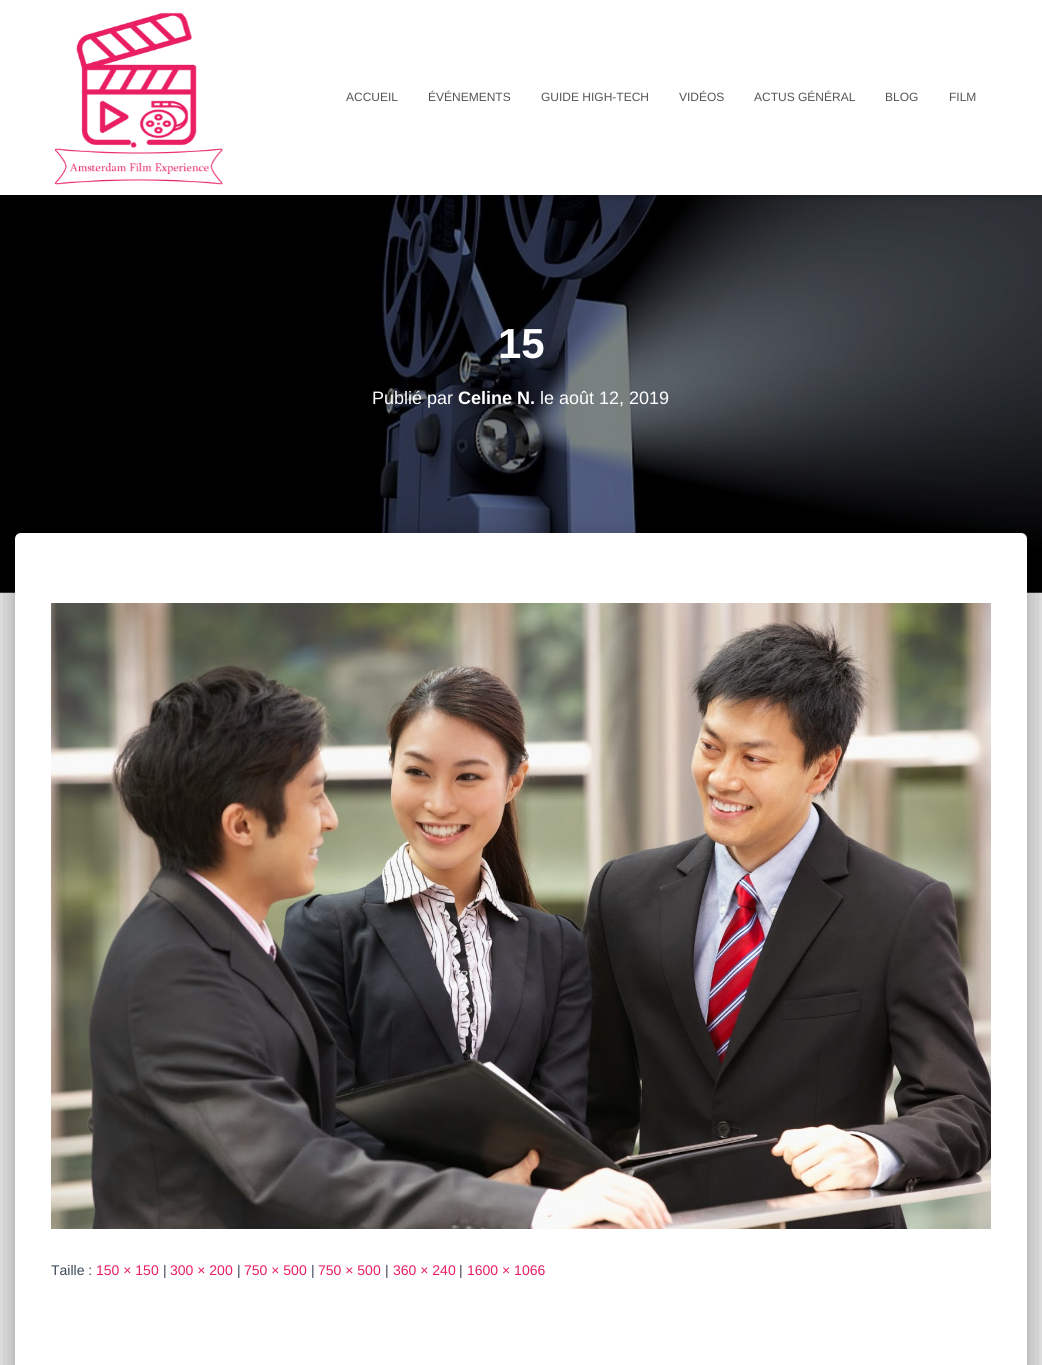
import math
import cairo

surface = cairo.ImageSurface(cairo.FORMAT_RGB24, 1042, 1365)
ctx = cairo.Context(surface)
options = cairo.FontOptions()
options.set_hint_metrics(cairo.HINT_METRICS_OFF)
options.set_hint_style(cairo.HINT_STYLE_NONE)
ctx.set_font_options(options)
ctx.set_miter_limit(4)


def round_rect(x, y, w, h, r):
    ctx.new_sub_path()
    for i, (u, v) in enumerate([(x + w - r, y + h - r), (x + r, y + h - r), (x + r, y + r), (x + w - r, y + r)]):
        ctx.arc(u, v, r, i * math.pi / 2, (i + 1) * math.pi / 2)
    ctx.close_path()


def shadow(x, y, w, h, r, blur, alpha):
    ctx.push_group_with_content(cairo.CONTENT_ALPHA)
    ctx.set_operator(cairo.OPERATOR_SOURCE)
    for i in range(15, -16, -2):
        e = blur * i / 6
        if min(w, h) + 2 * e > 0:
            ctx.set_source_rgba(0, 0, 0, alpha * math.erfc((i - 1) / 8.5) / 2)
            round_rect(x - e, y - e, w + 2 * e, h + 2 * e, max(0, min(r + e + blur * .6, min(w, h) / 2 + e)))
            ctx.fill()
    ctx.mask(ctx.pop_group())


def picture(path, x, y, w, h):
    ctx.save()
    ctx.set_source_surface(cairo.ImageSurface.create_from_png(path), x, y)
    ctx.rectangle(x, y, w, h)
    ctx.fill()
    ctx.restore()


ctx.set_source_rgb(0.898, 0.898, 0.898)
ctx.paint()
picture("img2.png", 0, 195, 1042, 398)
ctx.set_source_rgb(0, 0, 0)
shadow(2, 6, 1038, 191, 0, 2.5, 0.1)
shadow(0, 1, 1042, 195, 0, 5, 0.12)
shadow(6, 7, 1030, 183, 0, 5, 0.42)
ctx.set_source_rgb(1, 1, 1)
ctx.rectangle(0, 0, 1042, 195)
ctx.fill()
picture("img1.png", 54, 12, 169, 173)
ctx.select_font_face("Liberation Sans")
ctx.set_font_size(12)
ctx.set_source_rgb(0.333, 0.333, 0.333)
ctx.move_to(346, 101)
ctx.show_text("ACCUEIL")
ctx.move_to(428, 101)
ctx.show_text("ÉVÉNEMENTS")
ctx.move_to(541, 101)
ctx.show_text("GUIDE HIGH-TECH")
ctx.move_to(679, 101)
ctx.show_text("VIDÉOS")
ctx.move_to(754, 101)
ctx.show_text("ACTUS GÉNÉRAL")
ctx.move_to(885, 101)
ctx.show_text("BLOG")
ctx.move_to(949, 101)
ctx.show_text("FILM")
ctx.select_font_face("Liberation Sans", cairo.FONT_SLANT_NORMAL, cairo.FONT_WEIGHT_BOLD)
ctx.set_font_size(42)
ctx.set_source_rgb(1, 1, 1)
ctx.move_to(498, 358)
ctx.show_text("15")
ctx.select_font_face("Liberation Sans")
ctx.set_font_size(18)
ctx.move_to(372, 404)
ctx.show_text("Publié par")
ctx.select_font_face("Liberation Sans", cairo.FONT_SLANT_NORMAL, cairo.FONT_WEIGHT_BOLD)
ctx.move_to(458, 404)
ctx.show_text("Celine N.")
ctx.select_font_face("Liberation Sans")
ctx.move_to(540, 404)
ctx.show_text("le août 12, 2019")
ctx.set_source_rgb(0, 0, 0)
shadow(20, 546, 1002, 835, 1, 5, 0.2)
shadow(10, 534, 1022, 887, 11, 15, 0.12)
shadow(13, 547, 1016, 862, 8, 12, 0.14)
ctx.set_source_rgb(1, 1, 1)
ctx.new_path()
ctx.move_to(21, 533)
ctx.line_to(1021, 533)
ctx.curve_to(1024.5, 533, 1027, 535.5, 1027, 539)
ctx.line_to(1027, 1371)
ctx.line_to(15, 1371)
ctx.line_to(15, 539)
ctx.curve_to(15, 535.5, 17.5, 533, 21, 533)
ctx.close_path()
ctx.fill()
picture("img3.png", 51, 603, 940, 626)
ctx.set_font_size(14)
ctx.set_source_rgb(0.235, 0.282, 0.345)
ctx.move_to(51, 1275)
ctx.show_text("Taille :")
ctx.set_source_rgb(0.914, 0.118, 0.388)
ctx.move_to(96, 1275)
ctx.show_text("150 × 150")
ctx.set_source_rgb(0.235, 0.282, 0.345)
ctx.move_to(163, 1275)
ctx.show_text("|")
ctx.set_source_rgb(0.914, 0.118, 0.388)
ctx.move_to(170, 1275)
ctx.show_text("300 × 200")
ctx.set_source_rgb(0.235, 0.282, 0.345)
ctx.move_to(237, 1275)
ctx.show_text("|")
ctx.set_source_rgb(0.914, 0.118, 0.388)
ctx.move_to(244, 1275)
ctx.show_text("750 × 500")
ctx.set_source_rgb(0.235, 0.282, 0.345)
ctx.move_to(311, 1275)
ctx.show_text("|")
ctx.set_source_rgb(0.914, 0.118, 0.388)
ctx.move_to(318, 1275)
ctx.show_text("750 × 500")
ctx.set_source_rgb(0.235, 0.282, 0.345)
ctx.move_to(385, 1275)
ctx.show_text("|")
ctx.set_source_rgb(0.914, 0.118, 0.388)
ctx.move_to(393, 1275)
ctx.show_text("360 × 240")
ctx.set_source_rgb(0.235, 0.282, 0.345)
ctx.move_to(459, 1275)
ctx.show_text("|")
ctx.set_source_rgb(0.914, 0.118, 0.388)
ctx.move_to(467, 1275)
ctx.show_text("1600 × 1066")
surface.write_to_png("page.png")
